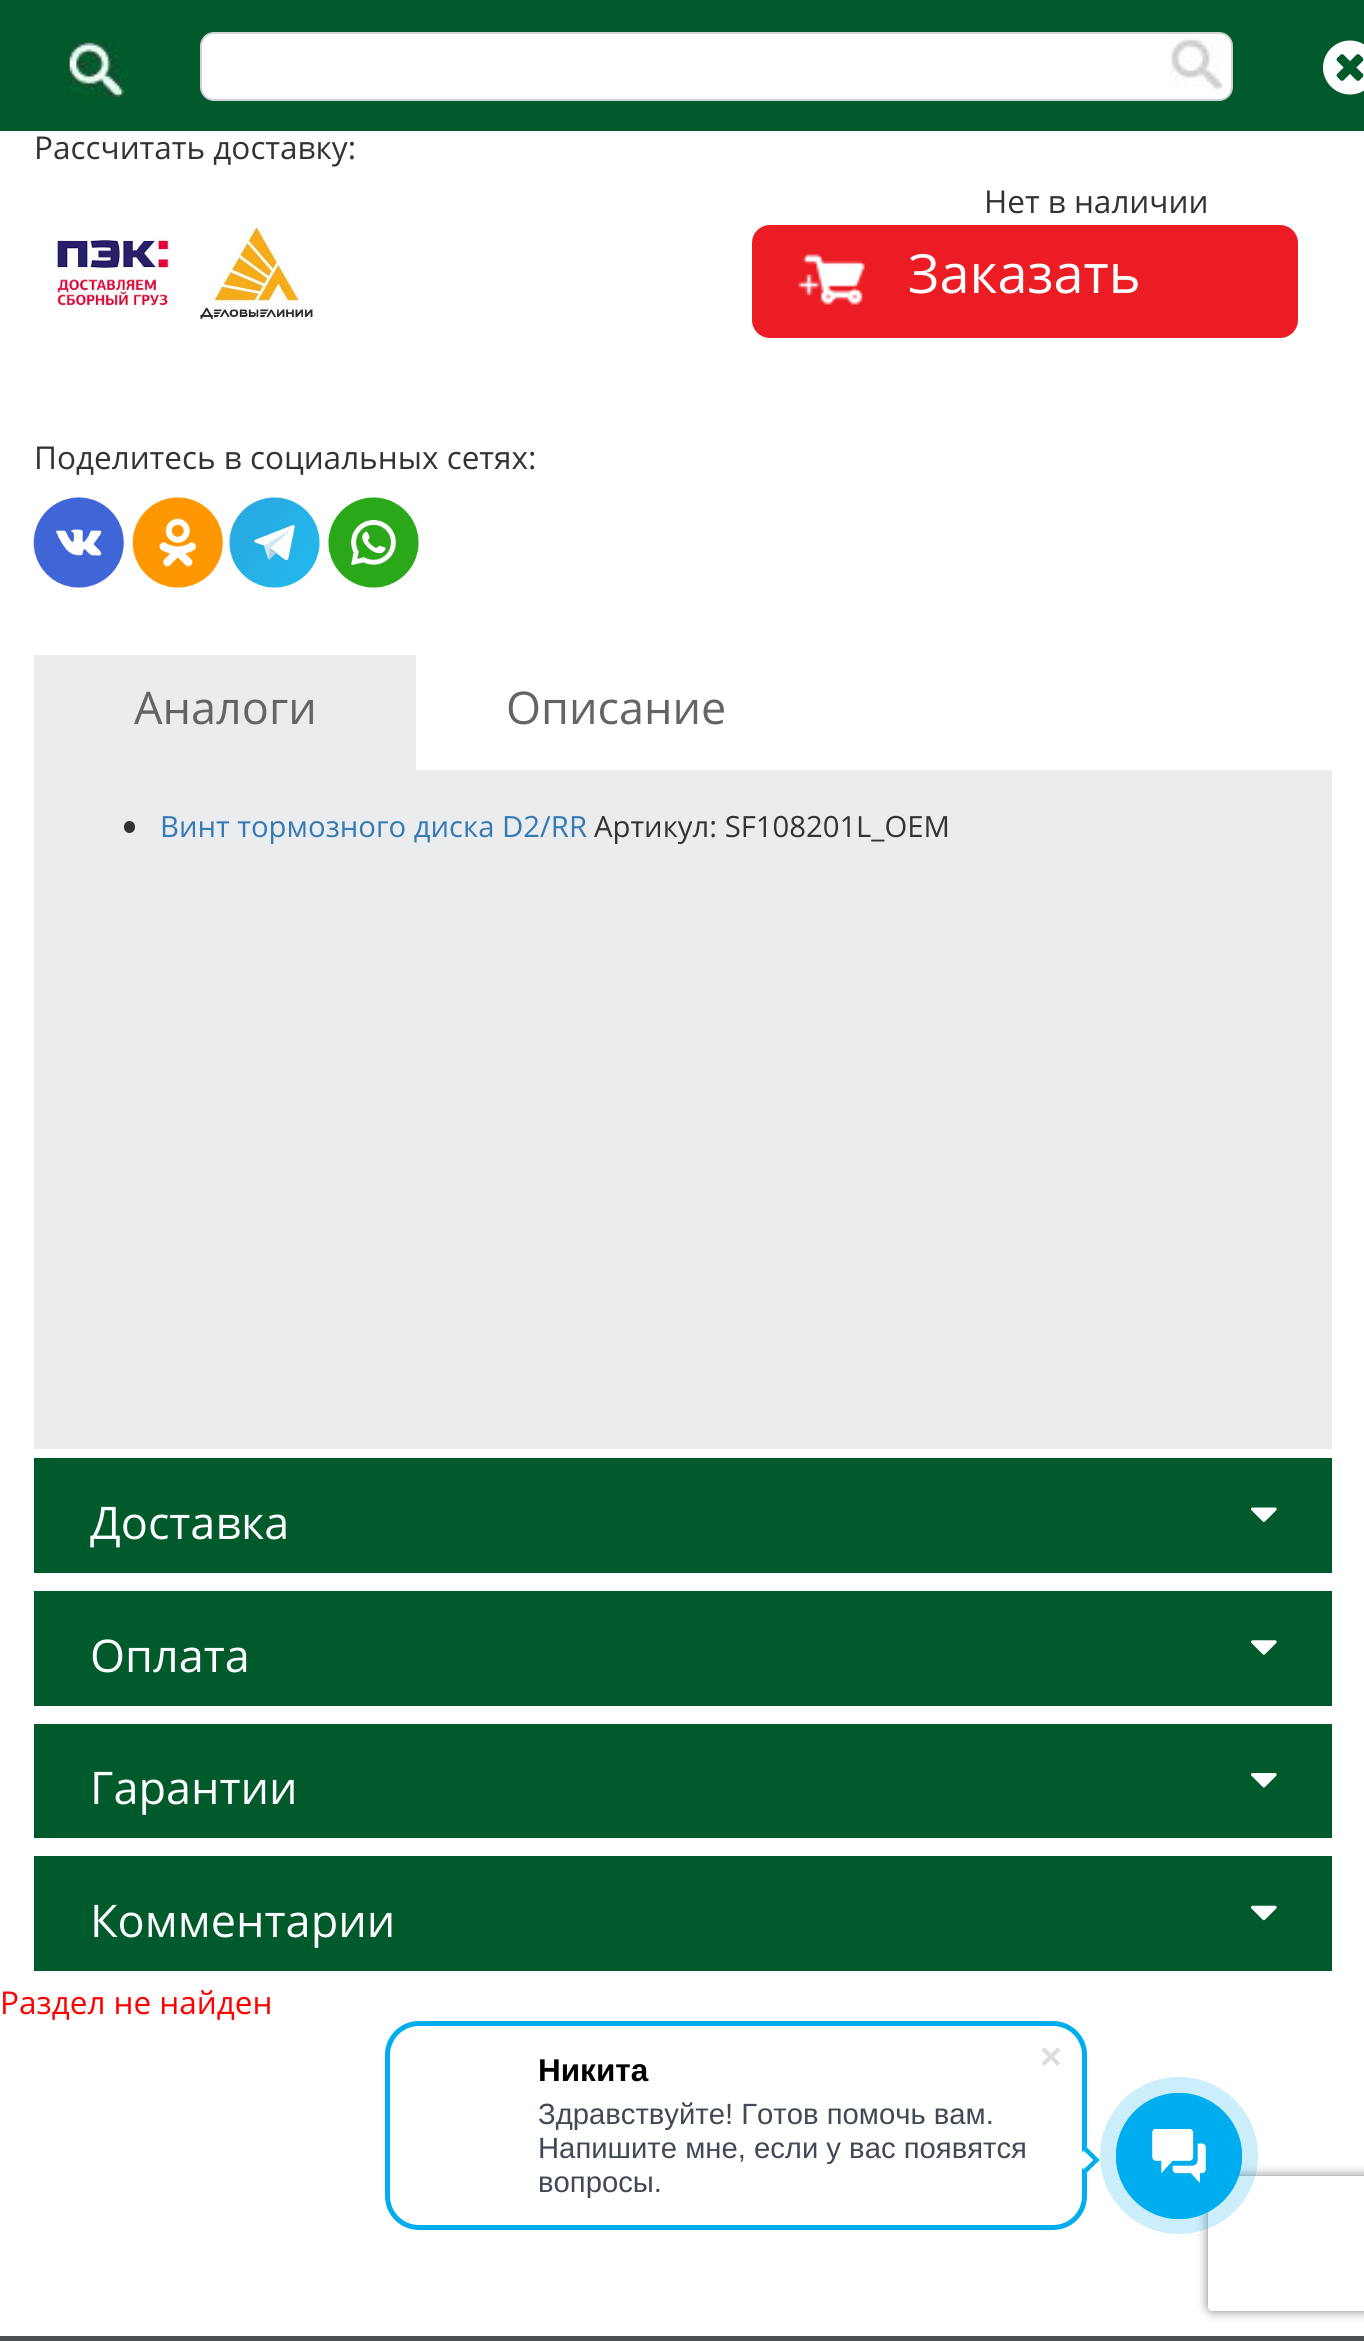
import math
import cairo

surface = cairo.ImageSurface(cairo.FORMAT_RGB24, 1364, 2341)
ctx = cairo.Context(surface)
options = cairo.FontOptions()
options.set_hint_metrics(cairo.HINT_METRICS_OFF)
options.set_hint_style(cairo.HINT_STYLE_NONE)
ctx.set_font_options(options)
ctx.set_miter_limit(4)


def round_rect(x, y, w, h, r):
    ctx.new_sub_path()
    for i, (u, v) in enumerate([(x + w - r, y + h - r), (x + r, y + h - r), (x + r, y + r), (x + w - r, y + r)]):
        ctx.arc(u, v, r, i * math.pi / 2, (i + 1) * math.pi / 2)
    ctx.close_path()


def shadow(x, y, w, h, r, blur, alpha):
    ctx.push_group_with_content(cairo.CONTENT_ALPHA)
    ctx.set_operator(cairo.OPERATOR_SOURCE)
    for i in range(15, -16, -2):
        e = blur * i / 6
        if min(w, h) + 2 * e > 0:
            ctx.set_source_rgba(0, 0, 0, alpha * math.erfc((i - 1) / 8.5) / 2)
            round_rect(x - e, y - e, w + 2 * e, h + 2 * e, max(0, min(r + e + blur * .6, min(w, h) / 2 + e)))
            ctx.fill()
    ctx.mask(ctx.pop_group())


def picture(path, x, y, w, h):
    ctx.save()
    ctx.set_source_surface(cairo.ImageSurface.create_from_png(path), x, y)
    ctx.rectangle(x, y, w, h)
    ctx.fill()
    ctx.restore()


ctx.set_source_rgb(1, 1, 1)
ctx.paint()
ctx.set_source_rgb(0.004, 0.353, 0.173)
ctx.rectangle(0, 0, 1364, 131)
ctx.fill()
picture("img1.png", 69, 42, 55, 55)
ctx.set_source_rgb(1, 1, 1)
round_rect(201, 33, 1031, 67, 13)
ctx.fill_preserve()
ctx.set_source_rgb(0.82, 0.824, 0.831)
ctx.stroke()
picture("img2.png", 1170, 38, 53, 53)
picture("img3.png", 1323, 40, 41, 55)
ctx.select_font_face("Open Sans")
ctx.set_font_size(31.5)
ctx.set_source_rgb(0.2, 0.2, 0.2)
ctx.move_to(34, 159)
ctx.show_text("Рассчитать доставку:")
picture("img4.png", 53, 238, 119, 69)
picture("img5.png", 200, 225, 113, 95)
ctx.move_to(984, 213)
ctx.show_text("Нет в наличии")
ctx.set_source_rgb(0.922, 0.11, 0.141)
round_rect(752, 225, 546, 113, 18)
ctx.fill()
picture("img6.png", 798, 254, 67, 51)
ctx.set_font_size(54)
ctx.set_source_rgb(1, 1, 1)
ctx.move_to(908, 293)
ctx.show_text("Заказать")
ctx.set_font_size(31.5)
ctx.set_source_rgb(0.2, 0.2, 0.2)
ctx.move_to(34, 469)
ctx.show_text("Поделитесь в социальных сетях:")
picture("img7.png", 33, 497, 91, 91)
picture("img8.png", 132, 497, 91, 91)
picture("img9.png", 229, 497, 91, 91)
picture("img10.png", 328, 497, 91, 91)
ctx.set_source_rgb(0.918, 0.922, 0.929)
ctx.rectangle(34, 655, 382, 115)
ctx.fill()
ctx.set_font_size(45)
ctx.set_source_rgb(0.388, 0.392, 0.4)
ctx.move_to(134, 724)
ctx.show_text("Аналоги")
ctx.move_to(506, 724)
ctx.show_text("Описание")
ctx.set_source_rgb(0.918, 0.922, 0.929)
ctx.rectangle(34, 770, 1298, 679)
ctx.fill()
ctx.set_source_rgb(0.2, 0.2, 0.2)
round_rect(124, 821, 11, 12, 5.5)
ctx.fill()
ctx.set_font_size(29.25)
ctx.set_source_rgb(0.2, 0.478, 0.718)
ctx.move_to(160, 837)
ctx.show_text("Винт тормозного диска D2/RR")
ctx.set_source_rgb(0.2, 0.2, 0.2)
ctx.move_to(594, 837)
ctx.show_text("Артикул: SF108201L_OEM")
ctx.set_source_rgb(0, 0.353, 0.169)
ctx.rectangle(34, 1458, 1298, 115)
ctx.fill()
ctx.set_font_size(45)
ctx.set_source_rgb(1, 1, 1)
ctx.move_to(90, 1539)
ctx.show_text("Доставка")
picture("img11.png", 1251, 1507, 26, 15)
ctx.set_source_rgb(0, 0.353, 0.169)
ctx.rectangle(34, 1591, 1298, 115)
ctx.fill()
ctx.set_source_rgb(1, 1, 1)
ctx.move_to(90, 1672)
ctx.show_text("Оплата")
picture("img12.png", 1251, 1640, 26, 15)
ctx.set_source_rgb(0, 0.353, 0.169)
ctx.rectangle(34, 1724, 1298, 114)
ctx.fill()
ctx.set_source_rgb(1, 1, 1)
ctx.move_to(90, 1804)
ctx.show_text("Гарантии")
picture("img13.png", 1251, 1773, 26, 15)
ctx.set_source_rgb(0, 0.353, 0.169)
ctx.rectangle(34, 1856, 1298, 115)
ctx.fill()
ctx.set_source_rgb(1, 1, 1)
ctx.move_to(90, 1937)
ctx.show_text("Комментарии")
picture("img14.png", 1251, 1905, 26, 16)
ctx.set_font_size(31.5)
ctx.set_source_rgb(1, 0, 0)
ctx.move_to(0, 2014)
ctx.show_text("Раздел не найден")
ctx.set_source_rgb(0.29, 0.31, 0.325)
ctx.rectangle(0, 2336, 1364, 5)
ctx.fill()
round_rect(387.5, 2023.5, 697, 204, 31.5)
ctx.set_source_rgb(0, 0.682, 0.937)
ctx.set_line_width(5)
ctx.stroke()
picture("img15.png", 1041, 2047, 20, 19)
ctx.select_font_face("Liberation Sans", cairo.FONT_SLANT_NORMAL, cairo.FONT_WEIGHT_BOLD)
ctx.set_source_rgb(0, 0, 0)
ctx.move_to(538, 2081)
ctx.show_text("Никита")
ctx.select_font_face("Liberation Sans")
ctx.set_font_size(29.25)
ctx.set_source_rgb(0.259, 0.286, 0.337)
ctx.move_to(538, 2124)
ctx.show_text("Здравствуйте! Готов помочь вам.")
ctx.move_to(538, 2158)
ctx.show_text("Напишите мне, если у вас появятся")
ctx.move_to(538, 2192)
ctx.show_text("вопросы.")
ctx.set_source_rgb(1, 1, 1)
ctx.new_path()
ctx.move_to(1074, 2160)
ctx.line_to(1087, 2147.5)
ctx.line_to(1099.5, 2160)
ctx.line_to(1087, 2172.5)
ctx.close_path()
ctx.fill()
ctx.set_source_rgb(0, 0.682, 0.937)
ctx.new_path()
ctx.move_to(1083.5, 2150.5)
ctx.line_to(1087, 2147.5)
ctx.line_to(1099.5, 2160)
ctx.line_to(1096.5, 2163)
ctx.close_path()
ctx.fill()
ctx.new_path()
ctx.move_to(1083.5, 2169.5)
ctx.line_to(1096.5, 2157)
ctx.line_to(1099.5, 2160)
ctx.line_to(1087, 2172.5)
ctx.close_path()
ctx.fill()
ctx.save()
ctx.set_fill_rule(cairo.FILL_RULE_EVEN_ODD)
ctx.new_path()
ctx.move_to(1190, 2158)
ctx.line_to(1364, 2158)
ctx.line_to(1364, 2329)
ctx.line_to(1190, 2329)
ctx.close_path()
ctx.move_to(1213, 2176)
ctx.line_to(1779, 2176)
ctx.curve_to(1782, 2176, 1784, 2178, 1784, 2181)
ctx.line_to(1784, 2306)
ctx.curve_to(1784, 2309, 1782, 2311, 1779, 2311)
ctx.line_to(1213, 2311)
ctx.curve_to(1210, 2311, 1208, 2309, 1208, 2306)
ctx.line_to(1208, 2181)
ctx.curve_to(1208, 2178, 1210, 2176, 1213, 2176)
ctx.close_path()
ctx.clip()
ctx.set_source_rgb(0.502, 0.502, 0.502)
shadow(1208, 2176, 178, 135, 5, 5.5, 1)
ctx.restore()
ctx.set_source_rgba(0, 0.682, 0.937, 0.2)
round_rect(1100, 2077, 158, 157, 78.5)
ctx.fill()
ctx.arc(1179, 2156, 62, 0, 2 * math.pi)
ctx.set_source_rgb(0, 0.682, 0.937)
ctx.set_line_width(2)
ctx.stroke()
ctx.arc(1179, 2156, 63, 0, 2 * math.pi)
ctx.fill()
picture("img16.png", 1152, 2129, 54, 54)
surface.write_to_png("page.png")
